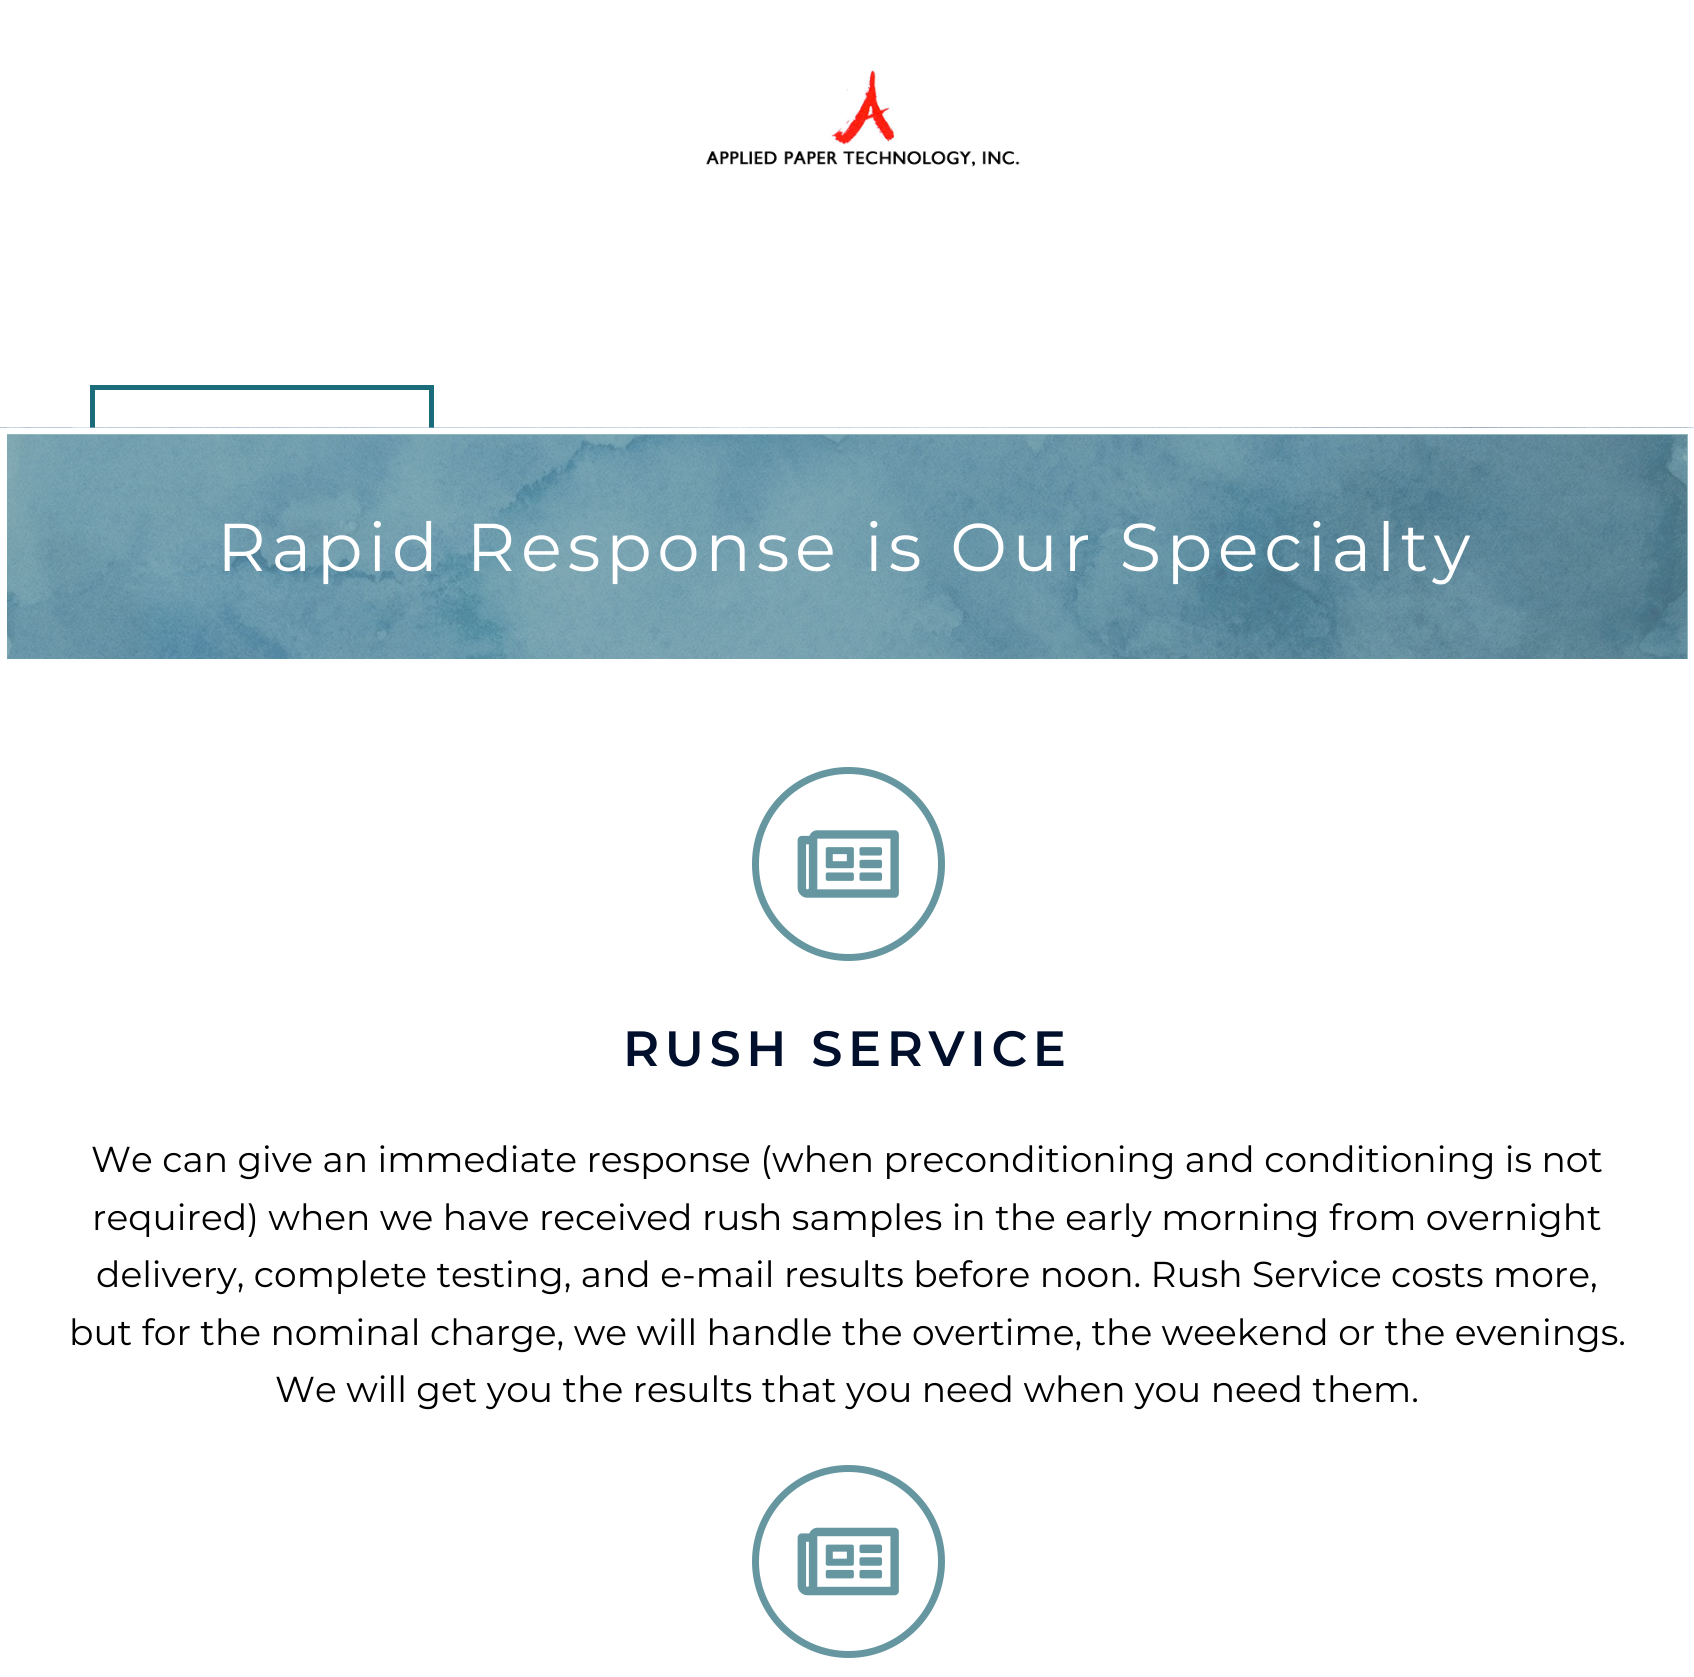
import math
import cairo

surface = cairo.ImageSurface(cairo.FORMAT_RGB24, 1694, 1677)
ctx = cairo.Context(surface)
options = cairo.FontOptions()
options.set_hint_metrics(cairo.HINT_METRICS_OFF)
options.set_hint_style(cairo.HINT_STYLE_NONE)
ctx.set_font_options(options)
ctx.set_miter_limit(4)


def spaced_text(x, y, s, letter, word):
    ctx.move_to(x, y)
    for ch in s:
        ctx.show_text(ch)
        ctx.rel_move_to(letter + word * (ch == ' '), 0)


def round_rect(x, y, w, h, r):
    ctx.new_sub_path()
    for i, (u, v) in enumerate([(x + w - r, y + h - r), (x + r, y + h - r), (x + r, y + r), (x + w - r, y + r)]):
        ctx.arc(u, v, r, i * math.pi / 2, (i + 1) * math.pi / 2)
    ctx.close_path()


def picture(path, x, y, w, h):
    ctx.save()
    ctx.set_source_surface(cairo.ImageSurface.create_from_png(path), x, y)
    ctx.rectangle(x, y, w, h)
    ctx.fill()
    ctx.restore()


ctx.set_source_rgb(1, 1, 1)
ctx.paint()
picture("img1.png", 706, 67, 314, 100)
ctx.rectangle(92.5, 387.5, 339, 101)
ctx.set_source_rgb(0.102, 0.424, 0.478)
ctx.set_line_width(5)
ctx.stroke()
picture("img2.png", 0, 427, 1694, 232)
ctx.rectangle(3.5, 431.5, 1687, 231)
ctx.set_source_rgb(1, 1, 1)
ctx.set_line_width(7)
ctx.stroke()
ctx.set_source_rgba(0.4, 0.592, 0.631, 0.7)
ctx.rectangle(7, 434, 1681, 225)
ctx.fill()
ctx.select_font_face("Montserrat")
ctx.set_font_size(67.5)
ctx.set_source_rgb(1, 1, 1)
spaced_text(217, 571, "Rapid Response is Our Specialty", 5.6, 0)
round_rect(755.5, 770.5, 186, 187, 93)
ctx.set_source_rgb(0.4, 0.592, 0.631)
ctx.stroke()
picture("img3.png", 797, 830, 102, 68)
ctx.select_font_face("Montserrat SemiBold")
ctx.set_font_size(49.5)
ctx.set_source_rgb(0, 0.059, 0.169)
spaced_text(623, 1066, "RUSH SERVICE", 5.6, 0)
ctx.select_font_face("Montserrat")
ctx.set_font_size(36)
ctx.set_source_rgb(0, 0, 0)
ctx.move_to(91, 1172)
ctx.show_text("We can give an immediate response (when preconditioning and conditioning is not")
ctx.move_to(92, 1230)
ctx.show_text("required) when we have received rush samples in the early morning from overnight")
ctx.move_to(96, 1287)
ctx.show_text("delivery, complete testing, and e-mail results before noon. Rush Service costs more,")
ctx.move_to(69, 1345)
ctx.show_text("but for the nominal charge, we will handle the overtime, the weekend or the evenings.")
ctx.move_to(275, 1402)
ctx.show_text("We will get you the results that you need when you need them.")
ctx.new_path()
ctx.arc(848.5, 1561.5, 93, 0, 2 * math.pi)
ctx.set_source_rgb(0.4, 0.592, 0.631)
ctx.stroke()
picture("img4.png", 797, 1527, 102, 69)
surface.write_to_png("page.png")
